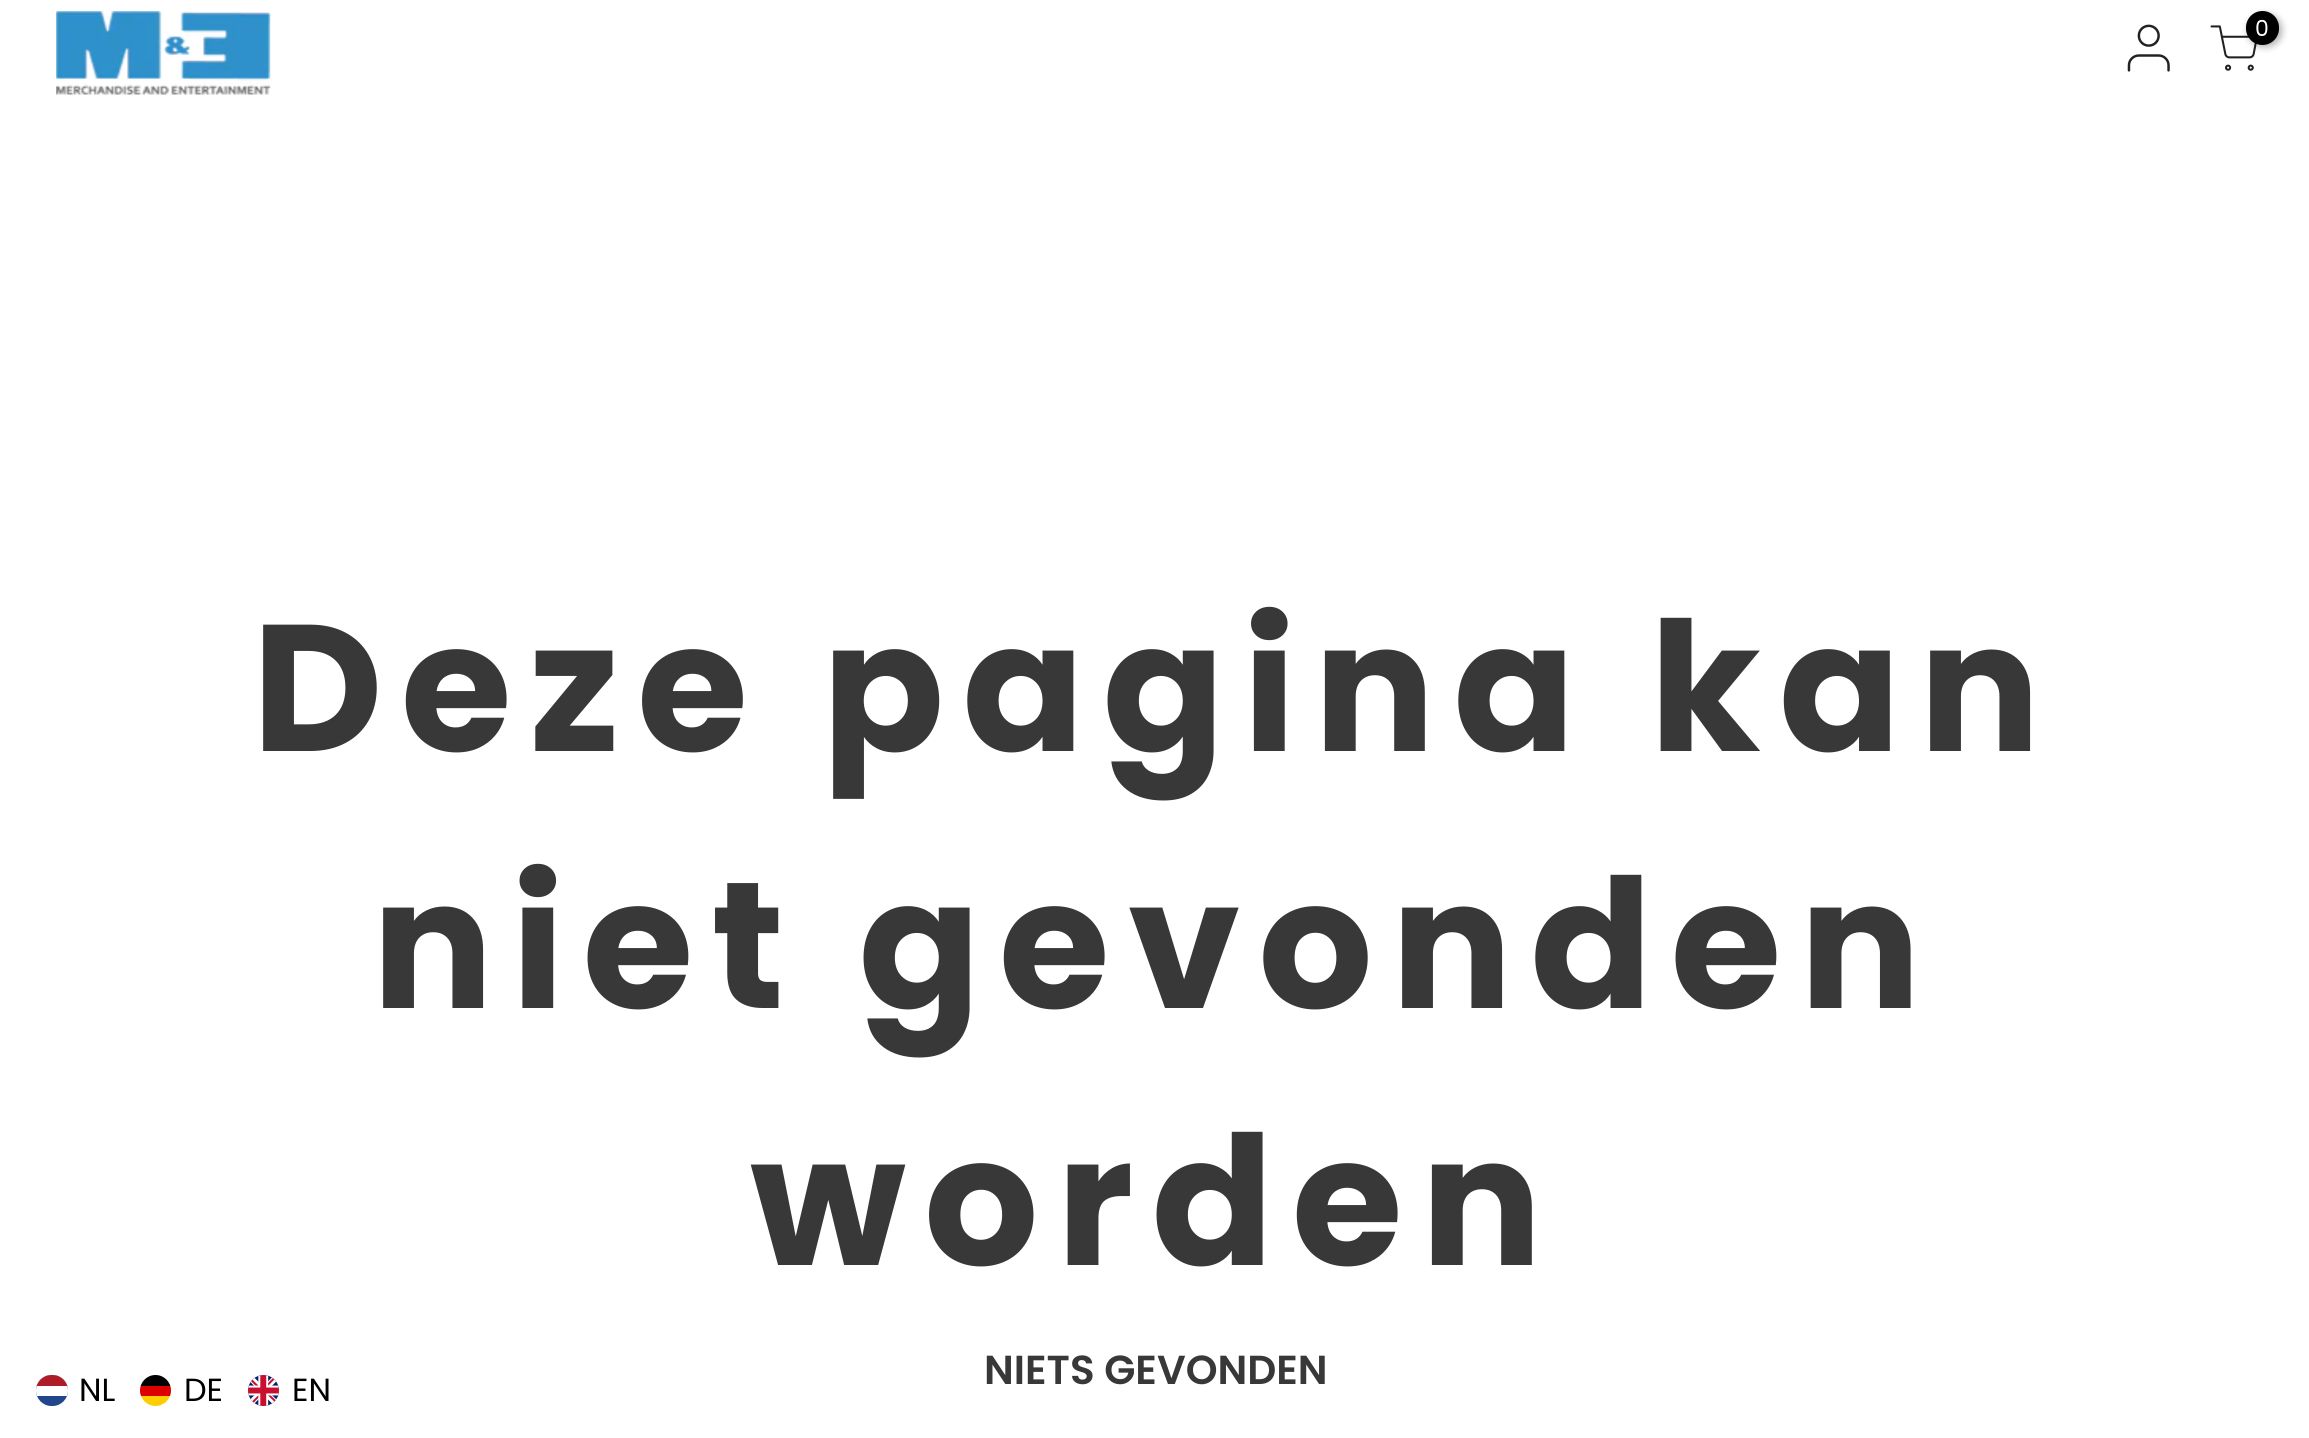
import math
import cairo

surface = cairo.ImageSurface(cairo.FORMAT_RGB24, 2309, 1438)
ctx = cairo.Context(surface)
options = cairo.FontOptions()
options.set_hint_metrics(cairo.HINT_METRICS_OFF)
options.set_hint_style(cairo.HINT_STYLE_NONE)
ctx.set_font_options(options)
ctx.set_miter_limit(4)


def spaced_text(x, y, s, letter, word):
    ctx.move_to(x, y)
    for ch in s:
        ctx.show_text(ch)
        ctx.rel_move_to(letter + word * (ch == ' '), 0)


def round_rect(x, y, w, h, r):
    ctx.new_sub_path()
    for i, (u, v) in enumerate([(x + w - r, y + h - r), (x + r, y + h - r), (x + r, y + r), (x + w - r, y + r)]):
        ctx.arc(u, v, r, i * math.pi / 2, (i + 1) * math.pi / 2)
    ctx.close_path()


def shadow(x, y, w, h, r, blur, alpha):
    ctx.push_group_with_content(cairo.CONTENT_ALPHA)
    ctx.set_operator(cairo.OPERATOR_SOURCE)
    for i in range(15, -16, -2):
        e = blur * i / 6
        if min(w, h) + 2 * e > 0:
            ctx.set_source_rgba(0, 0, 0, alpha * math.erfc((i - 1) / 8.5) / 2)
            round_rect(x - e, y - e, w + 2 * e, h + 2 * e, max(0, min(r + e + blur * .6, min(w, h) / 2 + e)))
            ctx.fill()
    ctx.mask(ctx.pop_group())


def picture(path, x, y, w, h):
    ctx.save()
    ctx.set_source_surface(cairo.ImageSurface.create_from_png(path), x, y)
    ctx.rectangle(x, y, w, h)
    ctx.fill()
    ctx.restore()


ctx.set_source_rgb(1, 1, 1)
ctx.paint()
picture("img1.png", 56, 11, 215, 84)
picture("img2.png", 2127, 24, 43, 48)
picture("img3.png", 2210, 25, 47, 46)
ctx.set_source_rgb(0, 0, 0)
shadow(2248, 14, 34, 33, 16.5, 3.5, 0.3)
ctx.set_source_rgb(0, 0, 0)
round_rect(2246, 11, 33, 34, 16.5)
ctx.fill()
ctx.select_font_face("Poppins")
ctx.set_font_size(22)
ctx.set_source_rgb(1, 1, 1)
ctx.move_to(2255, 36)
ctx.show_text("0")
ctx.select_font_face("Poppins", cairo.FONT_SLANT_NORMAL, cairo.FONT_WEIGHT_BOLD)
ctx.set_font_size(180)
ctx.set_source_rgb(0.22, 0.22, 0.22)
spaced_text(252, 751, "Deze pagina kan", 18, 0)
spaced_text(372, 1008, "niet gevonden", 18, 0)
spaced_text(750, 1265, "worden", 18, 0)
ctx.select_font_face("Poppins SemiBold")
ctx.set_font_size(40.5)
ctx.move_to(984, 1384)
ctx.show_text("NIETS GEVONDEN")
ctx.set_source_rgb(0.129, 0.275, 0.545)
round_rect(36, 1375, 32, 31, 15.5)
ctx.fill()
ctx.save()
round_rect(36, 1375, 32, 31, 15.5)
ctx.clip()
ctx.set_source_rgb(1, 1, 1)
ctx.new_path()
ctx.move_to(51.5, 1375)
ctx.line_to(52.5, 1375)
ctx.curve_to(61, 1375, 68, 1382, 68, 1390.5)
ctx.line_to(68, 1396)
ctx.line_to(36, 1396)
ctx.line_to(36, 1390.5)
ctx.curve_to(36, 1382, 43, 1375, 51.5, 1375)
ctx.close_path()
ctx.fill()
ctx.set_source_rgb(0.682, 0.11, 0.157)
ctx.rectangle(36, 1375, 32, 11)
ctx.fill()
ctx.restore()
ctx.select_font_face("Poppins")
ctx.set_font_size(32)
ctx.set_source_rgb(0, 0, 0)
ctx.move_to(79, 1401)
ctx.show_text("NL")
ctx.save()
round_rect(140, 1375, 31, 31, 15.5)
ctx.clip()
ctx.set_source_rgb(1, 0.808, 0)
ctx.rectangle(141, 1396, 29, 10)
ctx.fill()
ctx.set_source_rgb(0, 0, 0)
ctx.rectangle(140, 1375, 31, 11)
ctx.fill()
ctx.set_source_rgb(0.867, 0, 0)
ctx.rectangle(140, 1386, 31, 10)
ctx.fill()
ctx.restore()
ctx.move_to(184, 1401)
ctx.show_text("DE")
picture("img4.png", 248, 1375, 31, 31)
ctx.move_to(292, 1401)
ctx.show_text("EN")
surface.write_to_png("page.png")
